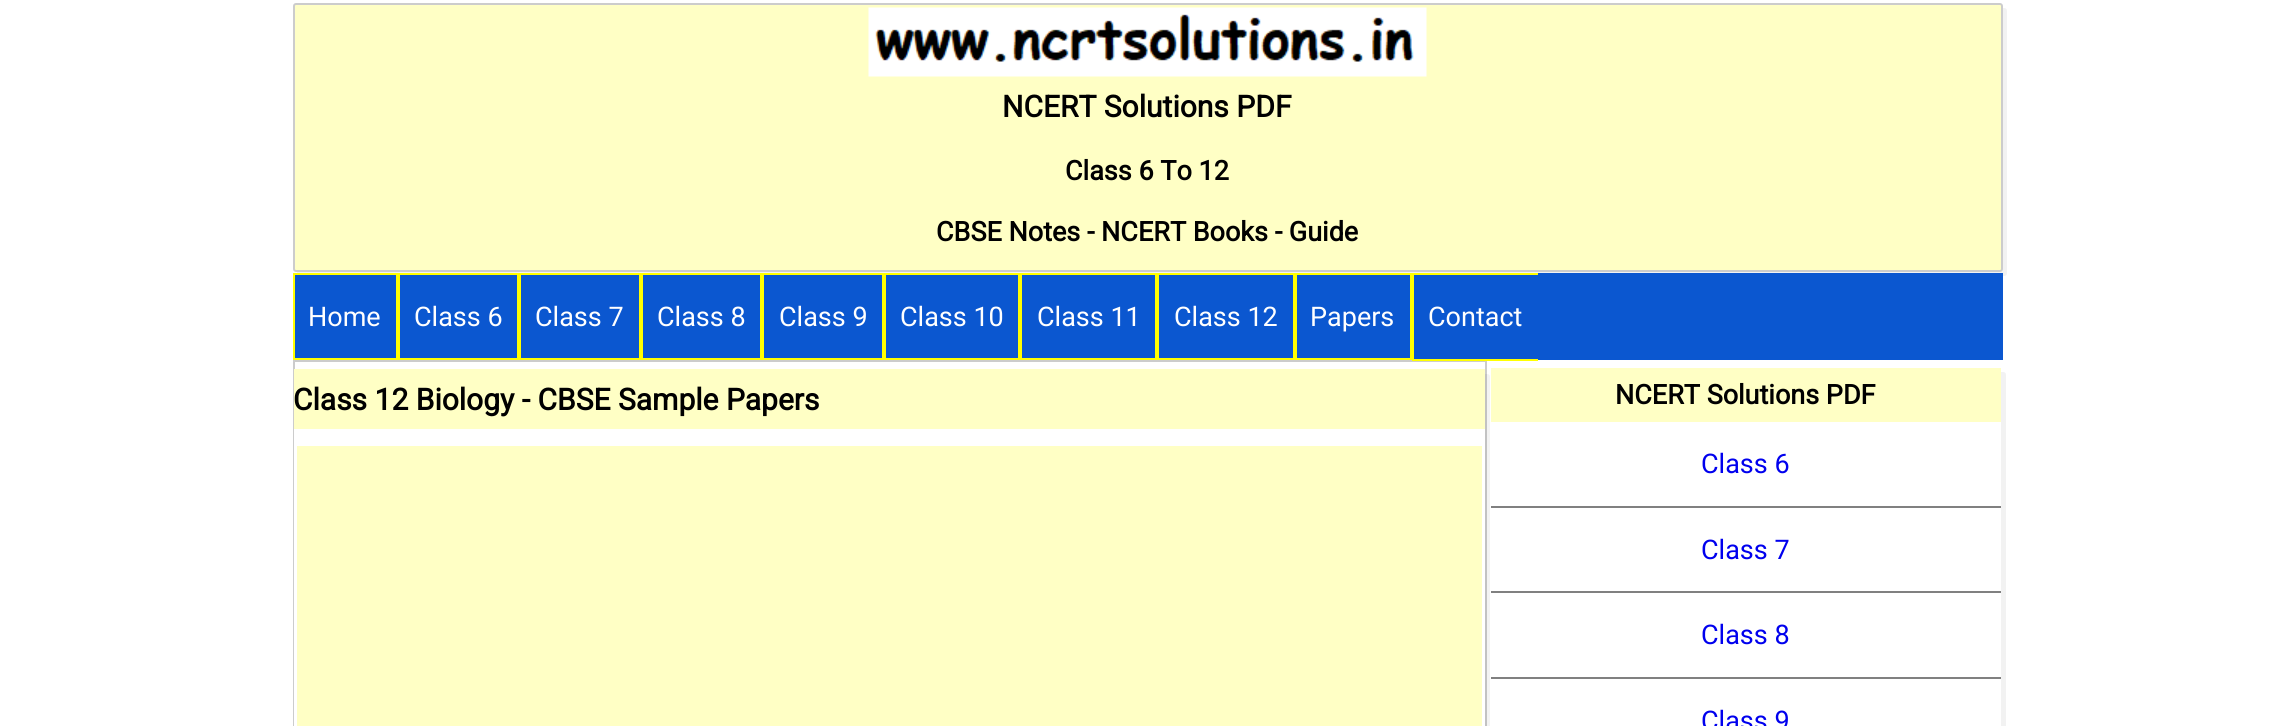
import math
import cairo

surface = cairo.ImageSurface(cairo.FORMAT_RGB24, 2293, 726)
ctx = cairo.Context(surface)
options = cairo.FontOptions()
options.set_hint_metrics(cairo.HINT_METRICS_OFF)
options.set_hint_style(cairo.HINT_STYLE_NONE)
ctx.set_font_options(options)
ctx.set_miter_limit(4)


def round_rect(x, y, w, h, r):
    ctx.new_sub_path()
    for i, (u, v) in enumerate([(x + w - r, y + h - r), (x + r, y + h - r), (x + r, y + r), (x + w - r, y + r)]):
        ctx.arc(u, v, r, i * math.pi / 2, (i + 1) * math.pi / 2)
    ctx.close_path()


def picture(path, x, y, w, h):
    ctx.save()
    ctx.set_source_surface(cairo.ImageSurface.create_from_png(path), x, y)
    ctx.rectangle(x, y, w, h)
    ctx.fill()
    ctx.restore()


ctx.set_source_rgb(1, 1, 1)
ctx.paint()
ctx.set_source_rgb(0.949, 0.949, 0.949)
ctx.new_path()
ctx.move_to(297, 272)
ctx.line_to(297, 273)
ctx.curve_to(297, 275, 298, 276, 300, 276)
ctx.line_to(2004, 276)
ctx.curve_to(2006, 276, 2007, 275, 2007, 273)
ctx.line_to(2007, 11)
ctx.curve_to(2007, 9, 2006, 8, 2004, 8)
ctx.line_to(2002, 8)
ctx.line_to(2002, 268)
ctx.curve_to(2002, 270, 2001, 272, 2000, 272)
ctx.close_path()
ctx.fill()
ctx.set_source_rgb(1, 1, 0.773)
round_rect(294, 4, 1708, 267, 2)
ctx.fill_preserve()
ctx.set_source_rgb(0.8, 0.8, 0.8)
ctx.stroke()
picture("img1.png", 868, 7, 559, 70)
ctx.select_font_face("Roboto", cairo.FONT_SLANT_NORMAL, cairo.FONT_WEIGHT_BOLD)
ctx.set_font_size(30)
ctx.set_source_rgb(0, 0, 0)
ctx.move_to(1002, 117)
ctx.show_text("NCERT Solutions PDF")
ctx.set_font_size(27)
ctx.move_to(1065, 180)
ctx.show_text("Class 6 To 12")
ctx.move_to(936, 241)
ctx.show_text("CBSE Notes - NCERT Books - Guide")
ctx.set_source_rgb(0.043, 0.341, 0.816)
ctx.rectangle(295, 273, 1708, 87)
ctx.fill()
ctx.rectangle(294, 274, 103, 85)
ctx.set_source_rgb(1, 1, 0)
ctx.stroke()
ctx.select_font_face("Roboto")
ctx.set_source_rgb(1, 1, 1)
ctx.move_to(308, 326)
ctx.show_text("Home")
ctx.rectangle(399, 274, 119, 85)
ctx.set_source_rgb(1, 1, 0)
ctx.stroke()
ctx.set_source_rgb(1, 1, 1)
ctx.move_to(414, 326)
ctx.show_text("Class 6")
ctx.rectangle(520, 274, 120, 85)
ctx.set_source_rgb(1, 1, 0)
ctx.stroke()
ctx.set_source_rgb(1, 1, 1)
ctx.move_to(535, 326)
ctx.show_text("Class 7")
ctx.rectangle(642, 274, 119, 85)
ctx.set_source_rgb(1, 1, 0)
ctx.stroke()
ctx.set_source_rgb(1, 1, 1)
ctx.move_to(657, 326)
ctx.show_text("Class 8")
ctx.rectangle(763, 274, 120, 85)
ctx.set_source_rgb(1, 1, 0)
ctx.stroke()
ctx.set_source_rgb(1, 1, 1)
ctx.move_to(779, 326)
ctx.show_text("Class 9")
ctx.rectangle(885, 274, 134, 85)
ctx.set_source_rgb(1, 1, 0)
ctx.stroke()
ctx.set_source_rgb(1, 1, 1)
ctx.move_to(900, 326)
ctx.show_text("Class 10")
ctx.rectangle(1021, 274, 135, 85)
ctx.set_source_rgb(1, 1, 0)
ctx.stroke()
ctx.set_source_rgb(1, 1, 1)
ctx.move_to(1037, 326)
ctx.show_text("Class 11")
ctx.rectangle(1158, 274, 136, 85)
ctx.set_source_rgb(1, 1, 0)
ctx.stroke()
ctx.set_source_rgb(1, 1, 1)
ctx.move_to(1174, 326)
ctx.show_text("Class 12")
ctx.rectangle(1296, 274, 115, 85)
ctx.set_source_rgb(1, 1, 0)
ctx.stroke()
ctx.set_source_rgb(1, 1, 1)
ctx.move_to(1310, 326)
ctx.show_text("Papers")
ctx.set_source_rgb(1, 1, 0)
ctx.rectangle(1412, 273, 126, 2)
ctx.fill()
ctx.rectangle(294, 361, 1192, 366)
ctx.set_source_rgb(0.8, 0.8, 0.8)
ctx.stroke()
ctx.set_source_rgb(1, 1, 0)
ctx.rectangle(1412, 359, 126, 2)
ctx.fill()
ctx.rectangle(1412, 273, 2, 87)
ctx.fill()
ctx.set_source_rgb(1, 1, 1)
ctx.move_to(1428, 326)
ctx.show_text("Contact")
ctx.set_source_rgba(0, 0, 0, 0.05)
ctx.new_path()
ctx.move_to(299, 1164)
ctx.line_to(299, 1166)
ctx.curve_to(299, 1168, 300, 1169, 302, 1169)
ctx.line_to(1487, 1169)
ctx.curve_to(1489, 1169, 1490, 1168, 1490, 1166)
ctx.line_to(1490, 377)
ctx.curve_to(1490, 375, 1489, 374, 1487, 374)
ctx.line_to(1485, 374)
ctx.line_to(1485, 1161)
ctx.curve_to(1485, 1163, 1484, 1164, 1482, 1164)
ctx.close_path()
ctx.fill()
ctx.set_source_rgb(1, 1, 1)
ctx.rectangle(294, 429, 1, 297)
ctx.fill()
ctx.set_source_rgb(1, 1, 0.773)
ctx.rectangle(294, 369, 1191, 60)
ctx.fill()
ctx.select_font_face("Roboto", cairo.FONT_SLANT_NORMAL, cairo.FONT_WEIGHT_BOLD)
ctx.set_font_size(30)
ctx.set_source_rgb(0, 0, 0)
ctx.move_to(293, 410)
ctx.show_text("Class 12 Biology - CBSE Sample Papers")
ctx.set_source_rgb(1, 1, 0.773)
ctx.rectangle(297, 446, 1185, 280)
ctx.fill()
ctx.set_source_rgb(0.949, 0.949, 0.949)
ctx.new_path()
ctx.move_to(1496, 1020)
ctx.line_to(1496, 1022)
ctx.curve_to(1496, 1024, 1497, 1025, 1499, 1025)
ctx.line_to(2003, 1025)
ctx.curve_to(2005, 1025, 2006, 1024, 2006, 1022)
ctx.line_to(2006, 375)
ctx.curve_to(2006, 373, 2005, 372, 2003, 372)
ctx.line_to(2001, 372)
ctx.line_to(2001, 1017)
ctx.curve_to(2001, 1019, 2000, 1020, 1998, 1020)
ctx.close_path()
ctx.fill()
ctx.set_source_rgb(1, 1, 0.773)
ctx.rectangle(1491, 368, 510, 54)
ctx.fill()
ctx.set_font_size(27)
ctx.set_source_rgb(0, 0, 0)
ctx.move_to(1615, 404)
ctx.show_text("NCERT Solutions PDF")
ctx.set_source_rgb(0.502, 0.502, 0.502)
ctx.rectangle(1491, 506, 510, 2)
ctx.fill()
ctx.select_font_face("Roboto")
ctx.set_source_rgb(0, 0, 0.933)
ctx.move_to(1701, 473)
ctx.show_text("Class 6")
ctx.set_source_rgb(0.502, 0.502, 0.502)
ctx.rectangle(1491, 591, 510, 2)
ctx.fill()
ctx.set_source_rgb(0, 0, 0.933)
ctx.move_to(1701, 559)
ctx.show_text("Class 7")
ctx.set_source_rgb(0.502, 0.502, 0.502)
ctx.rectangle(1491, 677, 510, 2)
ctx.fill()
ctx.set_source_rgb(0, 0, 0.933)
ctx.move_to(1701, 644)
ctx.show_text("Class 8")
ctx.move_to(1701, 730)
ctx.show_text("Class 9")
surface.write_to_png("page.png")
